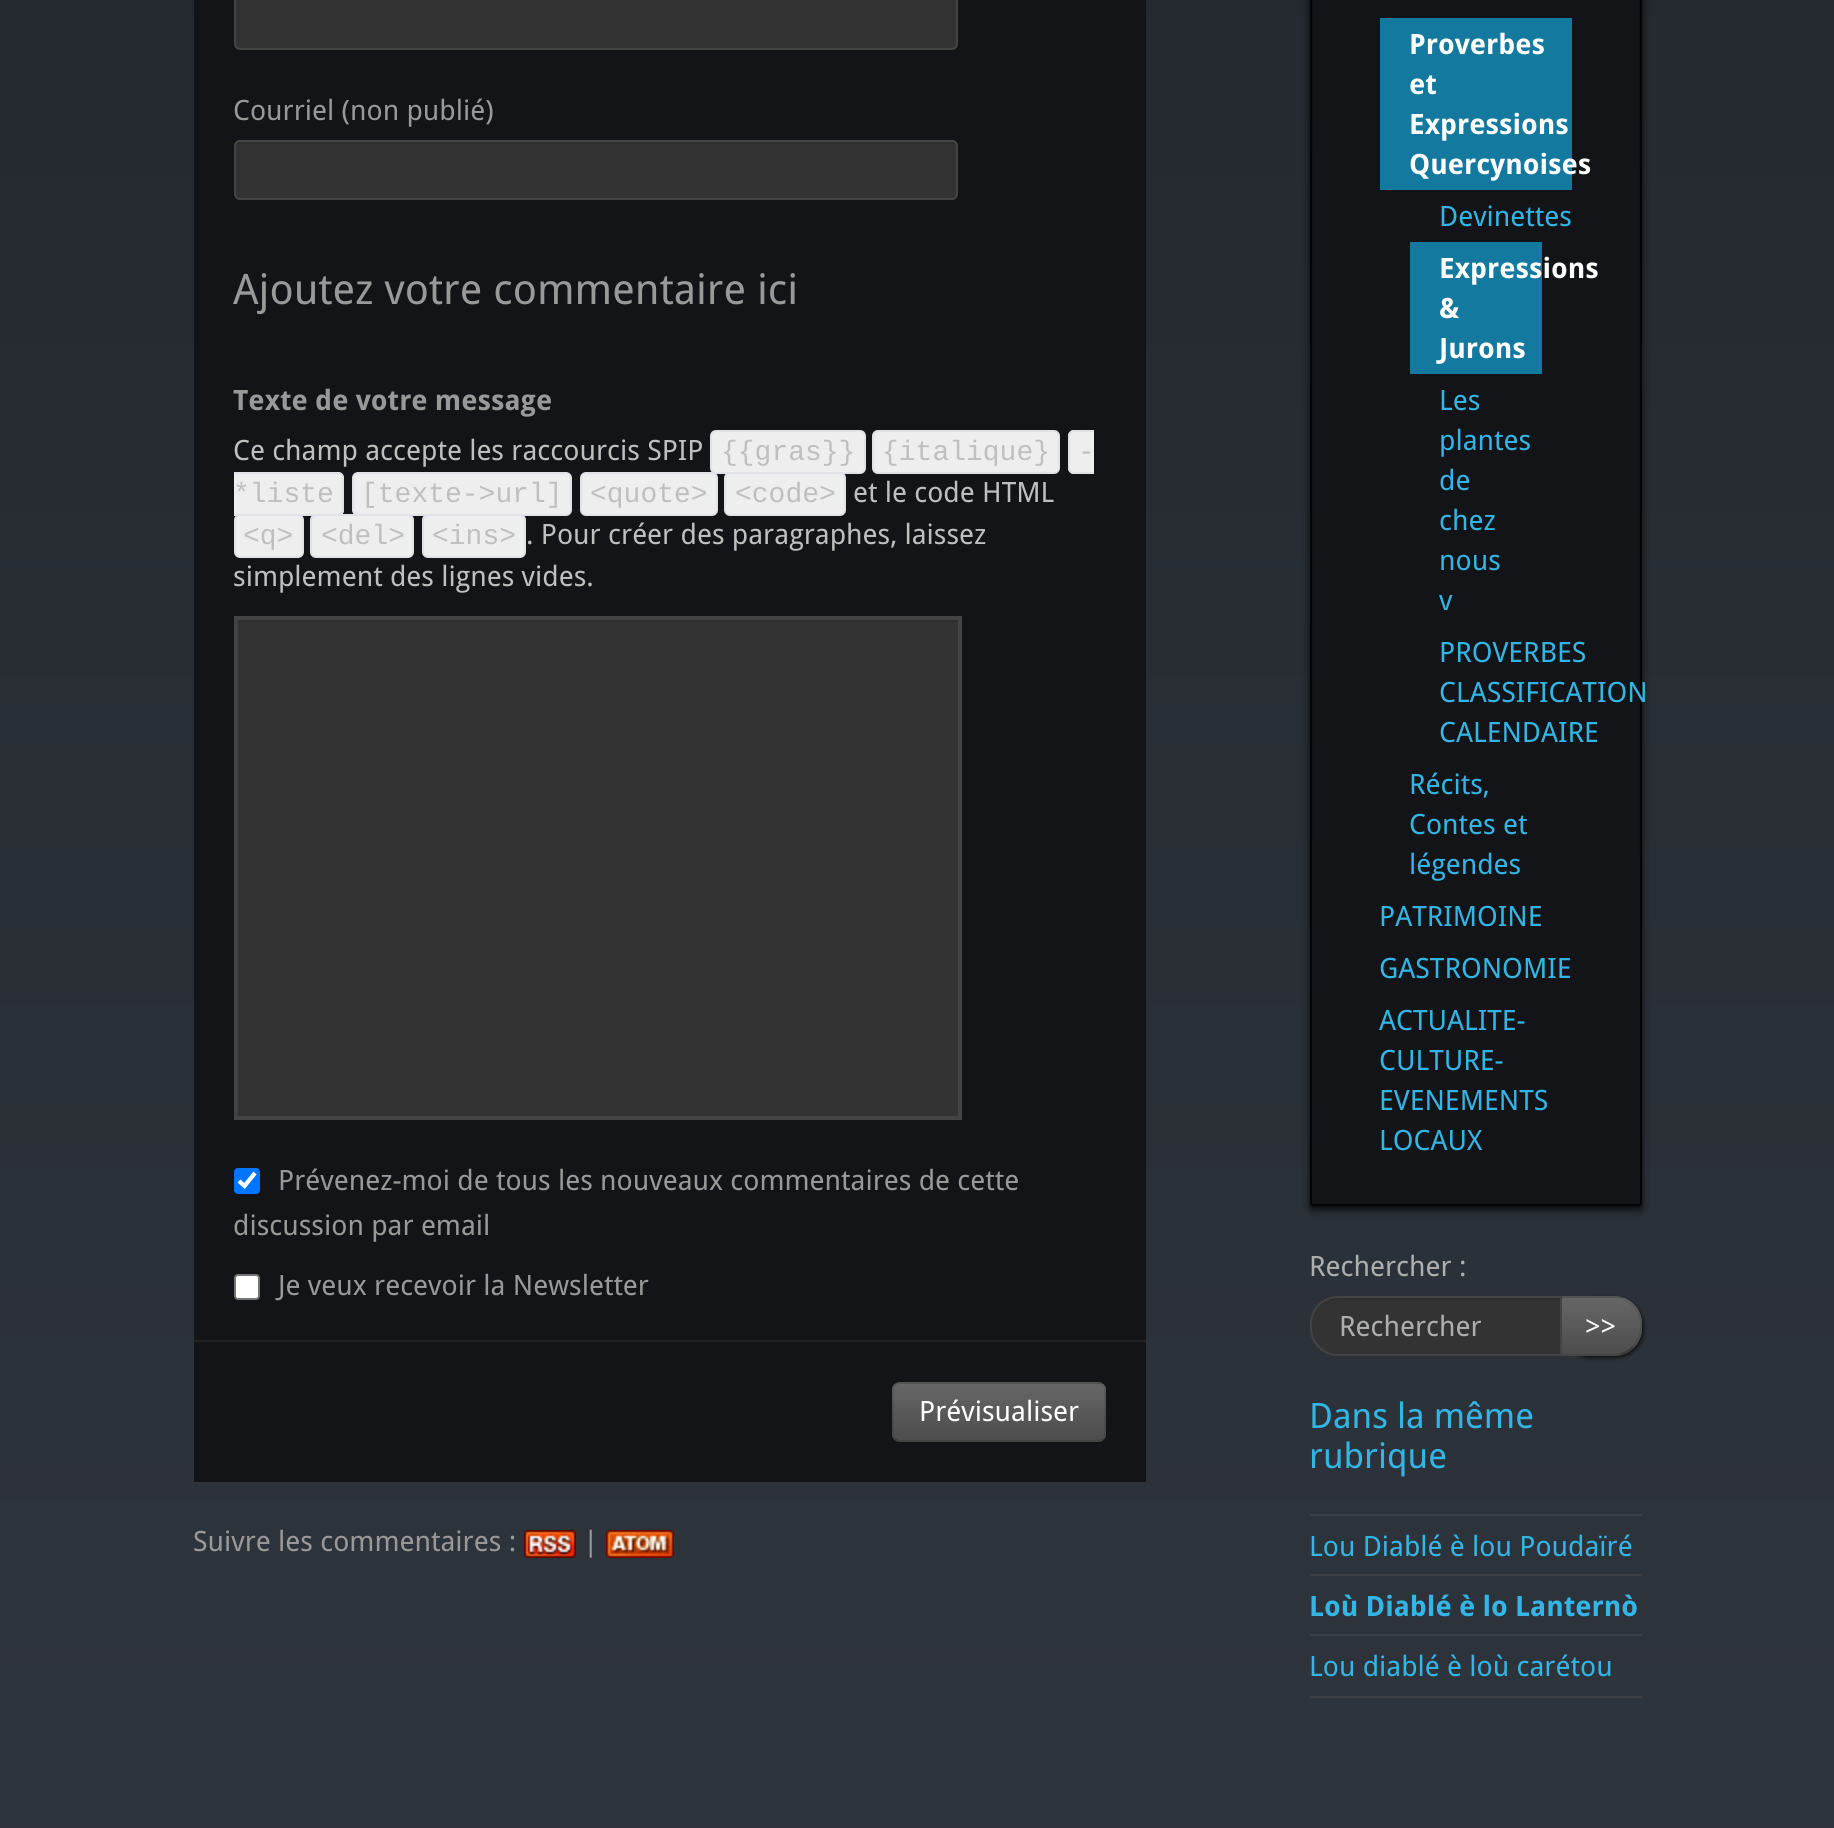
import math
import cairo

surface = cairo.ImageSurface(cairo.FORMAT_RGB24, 1834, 1828)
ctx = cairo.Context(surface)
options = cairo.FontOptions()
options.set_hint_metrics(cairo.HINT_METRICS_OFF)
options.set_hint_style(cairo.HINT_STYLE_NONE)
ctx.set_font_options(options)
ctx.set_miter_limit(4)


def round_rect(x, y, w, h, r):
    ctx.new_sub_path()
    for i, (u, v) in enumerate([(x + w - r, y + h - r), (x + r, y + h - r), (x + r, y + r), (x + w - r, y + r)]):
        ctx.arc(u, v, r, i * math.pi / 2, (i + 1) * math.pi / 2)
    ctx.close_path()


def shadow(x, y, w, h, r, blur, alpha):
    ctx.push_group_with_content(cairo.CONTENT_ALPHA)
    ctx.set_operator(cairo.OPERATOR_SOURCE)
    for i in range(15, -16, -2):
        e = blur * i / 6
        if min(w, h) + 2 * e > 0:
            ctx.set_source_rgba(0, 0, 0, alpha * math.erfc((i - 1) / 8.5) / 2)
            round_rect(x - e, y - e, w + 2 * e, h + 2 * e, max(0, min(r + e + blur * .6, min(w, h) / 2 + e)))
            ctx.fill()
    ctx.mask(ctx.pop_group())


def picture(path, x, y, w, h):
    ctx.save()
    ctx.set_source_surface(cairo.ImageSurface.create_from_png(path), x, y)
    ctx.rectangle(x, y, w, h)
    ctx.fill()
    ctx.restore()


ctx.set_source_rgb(1, 1, 1)
ctx.paint()
gradient = cairo.LinearGradient(917, -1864, 917, 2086)
gradient.add_color_stop_rgba(0, 0.102, 0.118, 0.137, 1)
gradient.add_color_stop_rgba(1, 0.188, 0.212, 0.243, 1)
ctx.set_source(gradient)
ctx.rectangle(0, 0, 1834, 1828)
ctx.fill()
ctx.set_source_rgb(0.075, 0.082, 0.09)
ctx.rectangle(194, 0, 952, 1482)
ctx.fill()
ctx.set_source_rgb(0.2, 0.2, 0.2)
round_rect(235, -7, 722, 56, 5)
ctx.fill_preserve()
ctx.set_source_rgb(0.267, 0.267, 0.267)
ctx.stroke()
ctx.select_font_face("Droid Sans")
ctx.set_font_size(28)
ctx.set_source_rgb(0.6, 0.6, 0.6)
ctx.move_to(233, 120)
ctx.show_text("Courriel (non publié)")
ctx.set_source_rgb(0.2, 0.2, 0.2)
round_rect(234, 140, 724, 60, 6)
ctx.fill()
ctx.set_source_rgb(0.184, 0.184, 0.184)
ctx.new_path()
ctx.move_to(240, 144)
ctx.line_to(952, 144)
ctx.curve_to(954, 144, 956, 146, 956, 148)
ctx.curve_to(956, 145, 956, 142, 952, 142)
ctx.line_to(240, 142)
ctx.curve_to(236, 142, 236, 145, 236, 148)
ctx.curve_to(236, 146, 238, 144, 240, 144)
ctx.close_path()
ctx.fill()
round_rect(235, 141, 722, 58, 5)
ctx.set_source_rgb(0.267, 0.267, 0.267)
ctx.stroke()
ctx.set_font_size(42)
ctx.set_source_rgb(0.6, 0.6, 0.6)
ctx.move_to(233, 304)
ctx.show_text("Ajoutez votre commentaire ici")
ctx.select_font_face("Droid Sans", cairo.FONT_SLANT_NORMAL, cairo.FONT_WEIGHT_BOLD)
ctx.set_font_size(28)
ctx.move_to(233, 410)
ctx.show_text("Texte de votre message")
ctx.select_font_face("Droid Sans")
ctx.set_source_rgb(0.749, 0.749, 0.749)
ctx.move_to(233, 460)
ctx.show_text("Ce champ accepte les raccourcis SPIP")
ctx.set_source_rgb(0.933, 0.933, 0.933)
round_rect(711, 431, 154, 42, 5)
ctx.fill_preserve()
ctx.set_source_rgb(0.882, 0.882, 0.91)
ctx.stroke()
ctx.select_font_face("Liberation Mono")
ctx.set_source_rgb(0.749, 0.749, 0.749)
ctx.move_to(721, 460)
ctx.show_text("{{gras}}")
ctx.set_source_rgb(0.933, 0.933, 0.933)
round_rect(873, 431, 186, 42, 5)
ctx.fill_preserve()
ctx.set_source_rgb(0.882, 0.882, 0.91)
ctx.stroke()
ctx.set_source_rgb(0.749, 0.749, 0.749)
ctx.move_to(882, 460)
ctx.show_text("{italique}")
ctx.set_source_rgb(0.933, 0.933, 0.933)
ctx.new_path()
ctx.move_to(1074, 430)
ctx.line_to(1094, 430)
ctx.line_to(1094, 474)
ctx.line_to(1074, 474)
ctx.curve_to(1070.5, 474, 1068, 471.5, 1068, 468)
ctx.line_to(1068, 436)
ctx.curve_to(1068, 432.5, 1070.5, 430, 1074, 430)
ctx.close_path()
ctx.fill()
ctx.set_source_rgb(0.882, 0.882, 0.91)
ctx.set_fill_rule(cairo.FILL_RULE_EVEN_ODD)
ctx.new_path()
ctx.move_to(1074, 430)
ctx.line_to(1094, 430)
ctx.line_to(1094, 474)
ctx.line_to(1074, 474)
ctx.curve_to(1071, 474, 1068, 471, 1068, 468)
ctx.line_to(1068, 436)
ctx.curve_to(1068, 433, 1071, 430, 1074, 430)
ctx.close_path()
ctx.move_to(1074, 432)
ctx.line_to(1094, 432)
ctx.line_to(1094, 472)
ctx.line_to(1074, 472)
ctx.curve_to(1072, 472, 1070, 470, 1070, 468)
ctx.line_to(1070, 436)
ctx.curve_to(1070, 434, 1072, 432, 1074, 432)
ctx.close_path()
ctx.fill()
ctx.set_source_rgb(0.749, 0.749, 0.749)
ctx.move_to(1078, 460)
ctx.show_text("-")
ctx.set_source_rgb(0.933, 0.933, 0.933)
ctx.new_path()
ctx.move_to(234, 472)
ctx.line_to(338, 472)
ctx.curve_to(341.5, 472, 344, 474.5, 344, 478)
ctx.line_to(344, 510)
ctx.curve_to(344, 513.5, 341.5, 516, 338, 516)
ctx.line_to(234, 516)
ctx.close_path()
ctx.fill()
ctx.set_source_rgb(0.882, 0.882, 0.91)
ctx.new_path()
ctx.move_to(234, 472)
ctx.line_to(338, 472)
ctx.curve_to(341, 472, 344, 475, 344, 478)
ctx.line_to(344, 510)
ctx.curve_to(344, 513, 341, 516, 338, 516)
ctx.line_to(234, 516)
ctx.close_path()
ctx.move_to(234, 474)
ctx.line_to(338, 474)
ctx.curve_to(340, 474, 342, 476, 342, 478)
ctx.line_to(342, 510)
ctx.curve_to(342, 512, 340, 514, 338, 514)
ctx.line_to(234, 514)
ctx.close_path()
ctx.fill()
ctx.set_source_rgb(0.749, 0.749, 0.749)
ctx.move_to(233, 502)
ctx.show_text("*liste")
ctx.set_source_rgb(0.933, 0.933, 0.933)
round_rect(353, 473, 218, 42, 5)
ctx.fill_preserve()
ctx.set_source_rgb(0.882, 0.882, 0.91)
ctx.stroke()
ctx.set_source_rgb(0.749, 0.749, 0.749)
ctx.move_to(361, 502)
ctx.show_text("[texte->url]")
ctx.set_source_rgb(0.933, 0.933, 0.933)
round_rect(581, 473, 136, 42, 5)
ctx.fill_preserve()
ctx.set_source_rgb(0.882, 0.882, 0.91)
ctx.stroke()
ctx.set_source_rgb(0.749, 0.749, 0.749)
ctx.move_to(590, 502)
ctx.show_text("<quote>")
ctx.set_source_rgb(0.933, 0.933, 0.933)
round_rect(725, 473, 120, 42, 5)
ctx.fill_preserve()
ctx.set_source_rgb(0.882, 0.882, 0.91)
ctx.stroke()
ctx.set_source_rgb(0.749, 0.749, 0.749)
ctx.move_to(735, 502)
ctx.show_text("<code>")
ctx.select_font_face("Droid Sans")
ctx.move_to(853, 502)
ctx.show_text("et le code HTML")
ctx.set_source_rgb(0.933, 0.933, 0.933)
round_rect(235, 515, 68, 42, 5)
ctx.fill_preserve()
ctx.set_source_rgb(0.882, 0.882, 0.91)
ctx.stroke()
ctx.select_font_face("Liberation Mono")
ctx.set_source_rgb(0.749, 0.749, 0.749)
ctx.move_to(243, 544)
ctx.show_text("<q>")
ctx.set_source_rgb(0.933, 0.933, 0.933)
round_rect(311, 515, 102, 42, 5)
ctx.fill_preserve()
ctx.set_source_rgb(0.882, 0.882, 0.91)
ctx.stroke()
ctx.set_source_rgb(0.749, 0.749, 0.749)
ctx.move_to(321, 544)
ctx.show_text("<del>")
ctx.set_source_rgb(0.933, 0.933, 0.933)
round_rect(423, 515, 102, 42, 5)
ctx.fill_preserve()
ctx.set_source_rgb(0.882, 0.882, 0.91)
ctx.stroke()
ctx.set_source_rgb(0.749, 0.749, 0.749)
ctx.move_to(432, 544)
ctx.show_text("<ins>")
ctx.select_font_face("Droid Sans")
ctx.move_to(526, 544)
ctx.show_text(". Pour créer des paragraphes, laissez")
ctx.move_to(233, 586)
ctx.show_text("simplement des lignes vides.")
ctx.set_source_rgb(0.2, 0.2, 0.2)
round_rect(234, 616, 728, 504, 2)
ctx.fill()
ctx.set_source_rgb(0.184, 0.184, 0.184)
ctx.rectangle(238, 620, 720, 2)
ctx.fill()
ctx.rectangle(236, 618, 724, 500)
ctx.set_source_rgb(0.267, 0.267, 0.267)
ctx.set_line_width(4)
ctx.stroke()
ctx.set_source_rgb(0, 0.459, 1)
round_rect(234, 1168, 26, 26, 4)
ctx.fill()
ctx.new_path()
ctx.move_to(239, 1181)
ctx.line_to(244.5, 1186)
ctx.line_to(255, 1173)
ctx.set_source_rgb(1, 1, 1)
ctx.set_line_width(4.2)
ctx.stroke()
ctx.set_source_rgb(0.6, 0.6, 0.6)
ctx.move_to(278, 1190)
ctx.show_text("Prévenez-moi de tous les nouveaux commentaires de cette")
ctx.move_to(233, 1235)
ctx.show_text("discussion par email")
ctx.set_source_rgb(1, 1, 1)
round_rect(235, 1275, 24, 24, 3)
ctx.fill_preserve()
ctx.set_source_rgb(0.463, 0.463, 0.463)
ctx.set_line_width(2)
ctx.stroke()
ctx.set_source_rgb(0.6, 0.6, 0.6)
ctx.move_to(278, 1295)
ctx.show_text("Je veux recevoir la Newsletter")
ctx.set_source_rgb(0.133, 0.133, 0.133)
ctx.rectangle(194, 1340, 952, 2)
ctx.fill()
ctx.set_source_rgb(0.361, 0.361, 0.361)
round_rect(892, 1382, 214, 60, 8)
ctx.fill()
ctx.save()
ctx.set_fill_rule(cairo.FILL_RULE_WINDING)
round_rect(892, 1382, 214, 60, 8)
ctx.clip()
gradient = cairo.LinearGradient(999, 1384, 999, 1440)
gradient.add_color_stop_rgba(0, 0.4, 0.4, 0.4, 1)
gradient.add_color_stop_rgba(1, 0.302, 0.302, 0.302, 1)
ctx.set_source(gradient)
ctx.rectangle(892, 1384, 214, 56)
ctx.fill()
ctx.restore()
ctx.new_path()
ctx.move_to(1103, 1439)
ctx.curve_to(1101.5, 1440.5, 1100, 1441, 1098, 1441)
ctx.line_to(900, 1441)
ctx.curve_to(898, 1441, 896.5, 1440.5, 895, 1439)
ctx.set_source_rgba(0, 0, 0, 0.25)
ctx.stroke()
ctx.new_path()
ctx.move_to(895, 1439)
ctx.curve_to(893.5, 1437.5, 893, 1436, 893, 1434)
ctx.line_to(893, 1390)
ctx.curve_to(893, 1388, 893.5, 1386.5, 895, 1385)
ctx.curve_to(896.5, 1383.5, 898, 1383, 900, 1383)
ctx.line_to(1098, 1383)
ctx.curve_to(1100, 1383, 1101.5, 1383.5, 1103, 1385)
ctx.curve_to(1104.5, 1386.5, 1105, 1388, 1105, 1390)
ctx.line_to(1105, 1434)
ctx.curve_to(1105, 1436, 1104.5, 1437.5, 1103, 1439)
ctx.set_source_rgba(0, 0, 0, 0.1)
ctx.stroke()
ctx.set_source_rgb(1, 1, 1)
ctx.move_to(919, 1421)
ctx.show_text("Prévisualiser")
ctx.set_source_rgb(0.6, 0.6, 0.6)
ctx.move_to(193, 1551)
ctx.show_text("Suivre les commentaires :")
picture("img1.png", 524, 1530, 52, 28)
ctx.move_to(583, 1551)
ctx.show_text("|")
picture("img2.png", 606, 1530, 68, 28)
ctx.set_source_rgb(0, 0, 0)
shadow(1310, -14, 332, 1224, 2, 4, 0.8)
ctx.set_source_rgb(0.075, 0.082, 0.09)
round_rect(1310, -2, 332, 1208, 2)
ctx.fill()
ctx.new_path()
ctx.move_to(1640.5, -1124.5)
ctx.line_to(1641, 1204)
ctx.line_to(1640, 1205)
ctx.line_to(1312, 1205)
ctx.line_to(1311, 1204)
ctx.line_to(1311.5, -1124.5)
ctx.set_source_rgb(0.012, 0.012, 0.012)
ctx.stroke()
ctx.set_source_rgb(0.078, 0.475, 0.62)
ctx.rectangle(1380, 18, 192, 172)
ctx.fill()
ctx.select_font_face("Droid Sans", cairo.FONT_SLANT_NORMAL, cairo.FONT_WEIGHT_BOLD)
ctx.set_source_rgb(1, 1, 1)
ctx.move_to(1409, 54)
ctx.show_text("Proverbes")
ctx.move_to(1409, 94)
ctx.show_text("et")
ctx.move_to(1409, 134)
ctx.show_text("Expressions")
ctx.move_to(1409, 174)
ctx.show_text("Quercynoises")
ctx.select_font_face("Droid Sans")
ctx.set_source_rgb(0.2, 0.71, 0.898)
ctx.move_to(1439, 226)
ctx.show_text("Devinettes")
ctx.set_source_rgb(0.078, 0.475, 0.62)
ctx.rectangle(1410, 242, 132, 132)
ctx.fill()
ctx.select_font_face("Droid Sans", cairo.FONT_SLANT_NORMAL, cairo.FONT_WEIGHT_BOLD)
ctx.set_source_rgb(1, 1, 1)
ctx.move_to(1439, 278)
ctx.show_text("Expressions")
ctx.move_to(1439, 318)
ctx.show_text("&")
ctx.move_to(1439, 358)
ctx.show_text("Jurons")
ctx.select_font_face("Droid Sans")
ctx.set_source_rgb(0.2, 0.71, 0.898)
ctx.move_to(1439, 410)
ctx.show_text("Les")
ctx.move_to(1439, 450)
ctx.show_text("plantes")
ctx.move_to(1439, 490)
ctx.show_text("de")
ctx.move_to(1439, 530)
ctx.show_text("chez")
ctx.move_to(1439, 570)
ctx.show_text("nous")
ctx.move_to(1439, 610)
ctx.show_text("v")
ctx.move_to(1439, 662)
ctx.show_text("PROVERBES")
ctx.move_to(1439, 702)
ctx.show_text("CLASSIFICATION")
ctx.move_to(1439, 742)
ctx.show_text("CALENDAIRE")
ctx.move_to(1409, 794)
ctx.show_text("Récits,")
ctx.move_to(1409, 834)
ctx.show_text("Contes et")
ctx.move_to(1409, 874)
ctx.show_text("légendes")
ctx.move_to(1379, 926)
ctx.show_text("PATRIMOINE")
ctx.move_to(1379, 978)
ctx.show_text("GASTRONOMIE")
ctx.move_to(1379, 1030)
ctx.show_text("ACTUALITE-")
ctx.move_to(1379, 1070)
ctx.show_text("CULTURE-")
ctx.move_to(1379, 1110)
ctx.show_text("EVENEMENTS")
ctx.move_to(1379, 1150)
ctx.show_text("LOCAUX")
ctx.set_source_rgb(0.678, 0.686, 0.682)
ctx.move_to(1309, 1276)
ctx.show_text("Rechercher :")
ctx.set_source_rgb(0.067, 0.067, 0.067)
shadow(1562, 1298, 82, 60, 28, 2, 1)
ctx.set_source_rgb(0.361, 0.361, 0.361)
ctx.new_path()
ctx.move_to(1560, 1296)
ctx.line_to(1614, 1296)
ctx.curve_to(1629.5, 1296, 1642, 1308.5, 1642, 1324)
ctx.line_to(1642, 1328)
ctx.curve_to(1642, 1343.5, 1629.5, 1356, 1614, 1356)
ctx.line_to(1560, 1356)
ctx.close_path()
ctx.fill()
ctx.save()
ctx.set_fill_rule(cairo.FILL_RULE_WINDING)
ctx.new_path()
ctx.move_to(1560, 1296)
ctx.line_to(1614, 1296)
ctx.curve_to(1629.5, 1296, 1642, 1308.5, 1642, 1324)
ctx.line_to(1642, 1328)
ctx.curve_to(1642, 1343.5, 1629.5, 1356, 1614, 1356)
ctx.line_to(1560, 1356)
ctx.close_path()
ctx.clip()
gradient = cairo.LinearGradient(1601, 1298, 1601, 1354)
gradient.add_color_stop_rgba(0, 0.4, 0.4, 0.4, 1)
gradient.add_color_stop_rgba(1, 0.302, 0.302, 0.302, 1)
ctx.set_source(gradient)
ctx.rectangle(1562, 1298, 80, 56)
ctx.fill()
ctx.restore()
ctx.set_source_rgba(0, 0, 0, 0.1)
ctx.set_fill_rule(cairo.FILL_RULE_WINDING)
ctx.new_path()
ctx.move_to(1560, 1296)
ctx.line_to(1562, 1298)
ctx.line_to(1614, 1298)
ctx.curve_to(1621, 1298, 1628, 1301, 1632, 1306)
ctx.line_to(1634, 1304)
ctx.curve_to(1628, 1299, 1622, 1296, 1614, 1296)
ctx.close_path()
ctx.fill()
ctx.new_path()
ctx.move_to(1642, 1328)
ctx.curve_to(1642, 1319, 1640, 1311, 1634, 1304)
ctx.line_to(1632, 1306)
ctx.curve_to(1643, 1316, 1643, 1336, 1632, 1346)
ctx.line_to(1634, 1348)
ctx.curve_to(1639, 1342, 1642, 1336, 1642, 1328)
ctx.close_path()
ctx.fill()
ctx.set_source_rgba(0, 0, 0, 0.25)
ctx.new_path()
ctx.move_to(1614, 1356)
ctx.curve_to(1622, 1356, 1628, 1353, 1634, 1348)
ctx.line_to(1632, 1346)
ctx.curve_to(1628, 1351, 1621, 1354, 1614, 1354)
ctx.line_to(1562, 1354)
ctx.line_to(1560, 1356)
ctx.close_path()
ctx.fill()
ctx.set_source_rgb(0.2, 0.2, 0.2)
ctx.new_path()
ctx.move_to(1338, 1296)
ctx.line_to(1562, 1296)
ctx.line_to(1562, 1356)
ctx.line_to(1338, 1356)
ctx.curve_to(1322.5, 1356, 1310, 1343.5, 1310, 1328)
ctx.line_to(1310, 1324)
ctx.curve_to(1310, 1308.5, 1322.5, 1296, 1338, 1296)
ctx.close_path()
ctx.fill()
ctx.set_source_rgb(0.184, 0.184, 0.184)
ctx.new_path()
ctx.move_to(1338, 1300)
ctx.line_to(1560, 1300)
ctx.line_to(1560, 1298)
ctx.line_to(1338, 1298)
ctx.curve_to(1324, 1298, 1312, 1310, 1312, 1324)
ctx.line_to(1312, 1326)
ctx.curve_to(1312, 1312, 1324, 1300, 1338, 1300)
ctx.close_path()
ctx.fill()
ctx.new_path()
ctx.move_to(1338, 1297)
ctx.line_to(1561, 1297)
ctx.line_to(1561, 1355)
ctx.line_to(1338, 1355)
ctx.curve_to(1323, 1355, 1311, 1343, 1311, 1328)
ctx.line_to(1311, 1324)
ctx.curve_to(1311, 1309, 1323, 1297, 1338, 1297)
ctx.close_path()
ctx.set_source_rgb(0.267, 0.267, 0.267)
ctx.stroke()
ctx.set_source_rgb(0.678, 0.686, 0.682)
ctx.move_to(1339, 1336)
ctx.show_text("Rechercher")
ctx.set_source_rgb(1, 1, 1)
ctx.move_to(1585, 1336)
ctx.show_text(">>")
ctx.set_font_size(35)
ctx.set_source_rgb(0.2, 0.71, 0.898)
ctx.move_to(1309, 1428)
ctx.show_text("Dans la même")
ctx.move_to(1309, 1468)
ctx.show_text("rubrique")
ctx.set_source_rgb(0.235, 0.251, 0.271)
ctx.rectangle(1310, 1514, 332, 2)
ctx.fill()
ctx.set_font_size(28)
ctx.set_source_rgb(0.2, 0.71, 0.898)
ctx.move_to(1309, 1556)
ctx.show_text("Lou Diablé è lou Poudaïré")
ctx.set_source_rgb(0.235, 0.251, 0.271)
ctx.rectangle(1310, 1574, 332, 2)
ctx.fill()
ctx.select_font_face("Droid Sans", cairo.FONT_SLANT_NORMAL, cairo.FONT_WEIGHT_BOLD)
ctx.set_source_rgb(0.2, 0.71, 0.898)
ctx.move_to(1309, 1616)
ctx.show_text("Loù Diablé è lo Lanternò")
ctx.set_source_rgb(0.235, 0.251, 0.271)
ctx.rectangle(1310, 1634, 332, 2)
ctx.fill()
ctx.rectangle(1310, 1696, 332, 2)
ctx.fill()
ctx.select_font_face("Droid Sans")
ctx.set_source_rgb(0.2, 0.71, 0.898)
ctx.move_to(1309, 1676)
ctx.show_text("Lou diablé è loù carétou")
surface.write_to_png("page.png")
